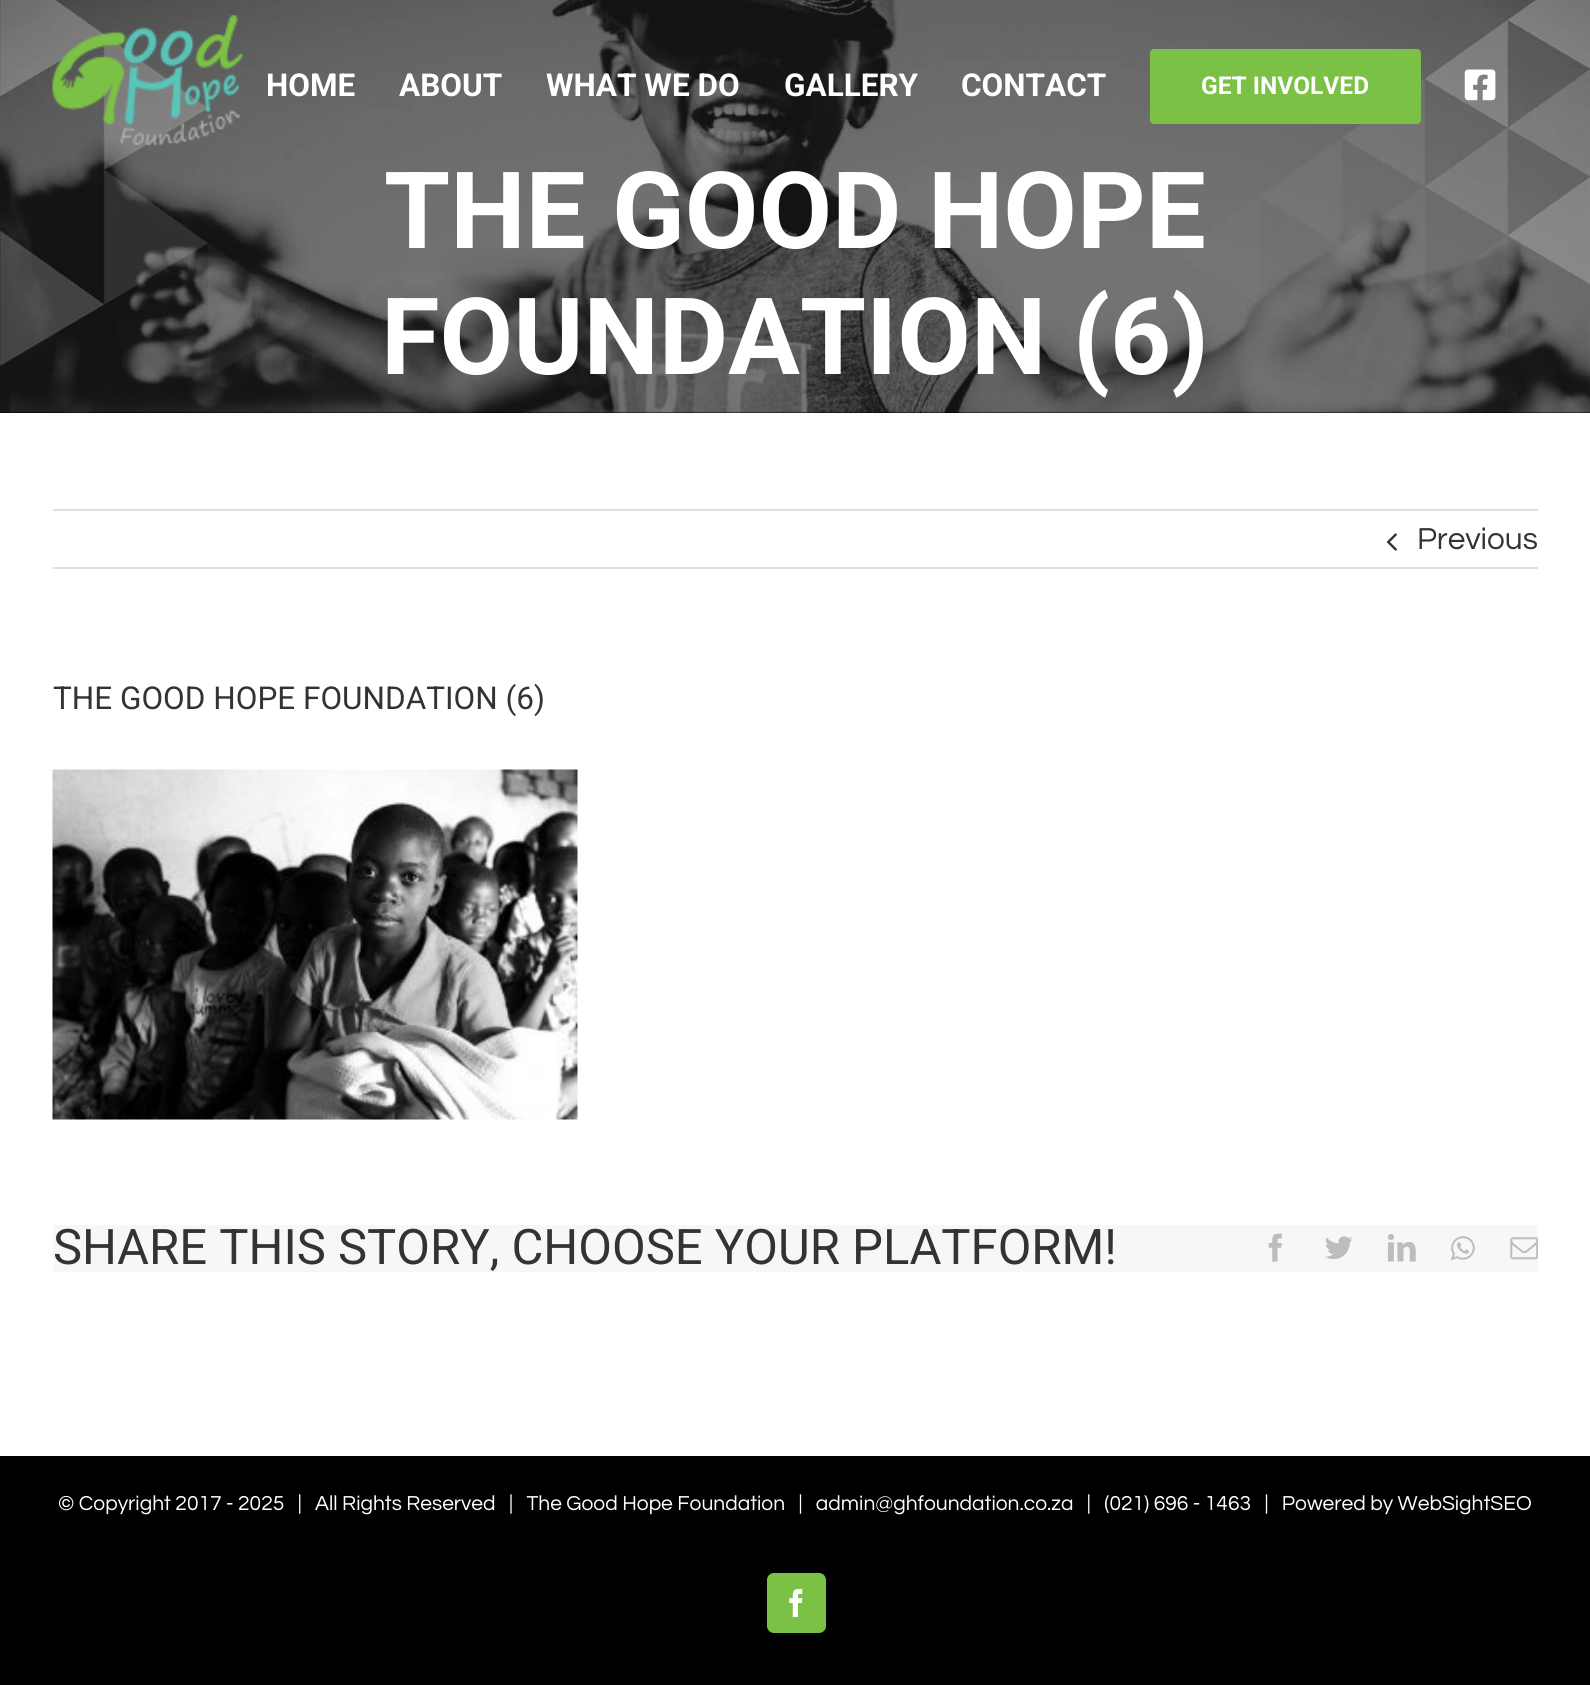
import math
import cairo

surface = cairo.ImageSurface(cairo.FORMAT_RGB24, 1590, 1685)
ctx = cairo.Context(surface)
options = cairo.FontOptions()
options.set_hint_metrics(cairo.HINT_METRICS_OFF)
options.set_hint_style(cairo.HINT_STYLE_NONE)
ctx.set_font_options(options)
ctx.set_miter_limit(4)


def round_rect(x, y, w, h, r):
    ctx.new_sub_path()
    for i, (u, v) in enumerate([(x + w - r, y + h - r), (x + r, y + h - r), (x + r, y + r), (x + w - r, y + r)]):
        ctx.arc(u, v, r, i * math.pi / 2, (i + 1) * math.pi / 2)
    ctx.close_path()


def picture(path, x, y, w, h):
    ctx.save()
    ctx.set_source_surface(cairo.ImageSurface.create_from_png(path), x, y)
    ctx.rectangle(x, y, w, h)
    ctx.fill()
    ctx.restore()


ctx.set_source_rgb(1, 1, 1)
ctx.paint()
ctx.set_source_rgb(0, 0, 0)
ctx.rectangle(0, 412, 1590, 1)
ctx.fill()
picture("img3.png", 0, 0, 1590, 413)
picture("img1.png", 52, 15, 192, 131)
ctx.select_font_face("Roboto", cairo.FONT_SLANT_NORMAL, cairo.FONT_WEIGHT_BOLD)
ctx.set_font_size(31.5)
ctx.set_source_rgb(1, 1, 1)
ctx.move_to(266, 96)
ctx.show_text("HOME")
ctx.move_to(399, 96)
ctx.show_text("ABOUT")
ctx.move_to(546, 96)
ctx.show_text("WHAT WE DO")
ctx.move_to(784, 96)
ctx.show_text("GALLERY")
ctx.move_to(961, 96)
ctx.show_text("CONTACT")
ctx.set_source_rgb(0.482, 0.757, 0.271)
round_rect(1150, 49, 271, 75, 4)
ctx.fill()
ctx.set_font_size(24.5)
ctx.set_source_rgb(1, 1, 1)
ctx.move_to(1201, 94)
ctx.show_text("GET INVOLVED")
picture("img2.png", 1464, 69, 32, 32)
ctx.set_font_size(106.75)
ctx.move_to(384, 248)
ctx.show_text("THE GOOD HOPE")
ctx.move_to(381, 374)
ctx.show_text("FOUNDATION (6)")
ctx.set_source_rgb(0.878, 0.871, 0.871)
ctx.rectangle(53, 509, 1485, 2)
ctx.fill()
ctx.rectangle(53, 567, 1485, 2)
ctx.fill()
picture("img4.png", 1386, 533, 11, 18)
ctx.select_font_face("Questrial")
ctx.set_font_size(31.5)
ctx.set_source_rgb(0.2, 0.2, 0.2)
ctx.move_to(1417, 549)
ctx.show_text("Previous")
ctx.select_font_face("Roboto")
ctx.move_to(53, 709)
ctx.show_text("THE GOOD HOPE FOUNDATION (6)")
picture("img5.png", 52, 769, 526, 351)
ctx.set_source_rgb(0.965, 0.965, 0.965)
ctx.rectangle(53, 1225, 1485, 47)
ctx.fill()
ctx.set_font_size(49)
ctx.set_source_rgb(0.2, 0.2, 0.2)
ctx.move_to(53, 1264)
ctx.show_text("SHARE THIS STORY, CHOOSE YOUR PLATFORM!")
picture("img6.png", 1268, 1233, 14, 29)
picture("img7.png", 1325, 1236, 28, 24)
picture("img8.png", 1387, 1234, 29, 28)
picture("img9.png", 1451, 1236, 24, 25)
picture("img10.png", 1510, 1237, 28, 23)
ctx.set_source_rgb(0, 0, 0)
ctx.rectangle(0, 1456, 1590, 229)
ctx.fill()
ctx.select_font_face("Questrial")
ctx.set_font_size(21)
ctx.set_source_rgb(1, 1, 1)
ctx.move_to(58, 1510)
ctx.show_text("© Copyright 2017 - 2025   |   All Rights Reserved   |   The Good Hope Foundation   |   admin@ghfoundation.co.za   |   (021) 696 - 1463   |   Powered by WebSightSEO")
ctx.set_source_rgb(0.482, 0.757, 0.271)
round_rect(768, 1574, 57, 58, 6)
ctx.fill_preserve()
ctx.stroke()
picture("img11.png", 789, 1589, 14, 28)
surface.write_to_png("page.png")
